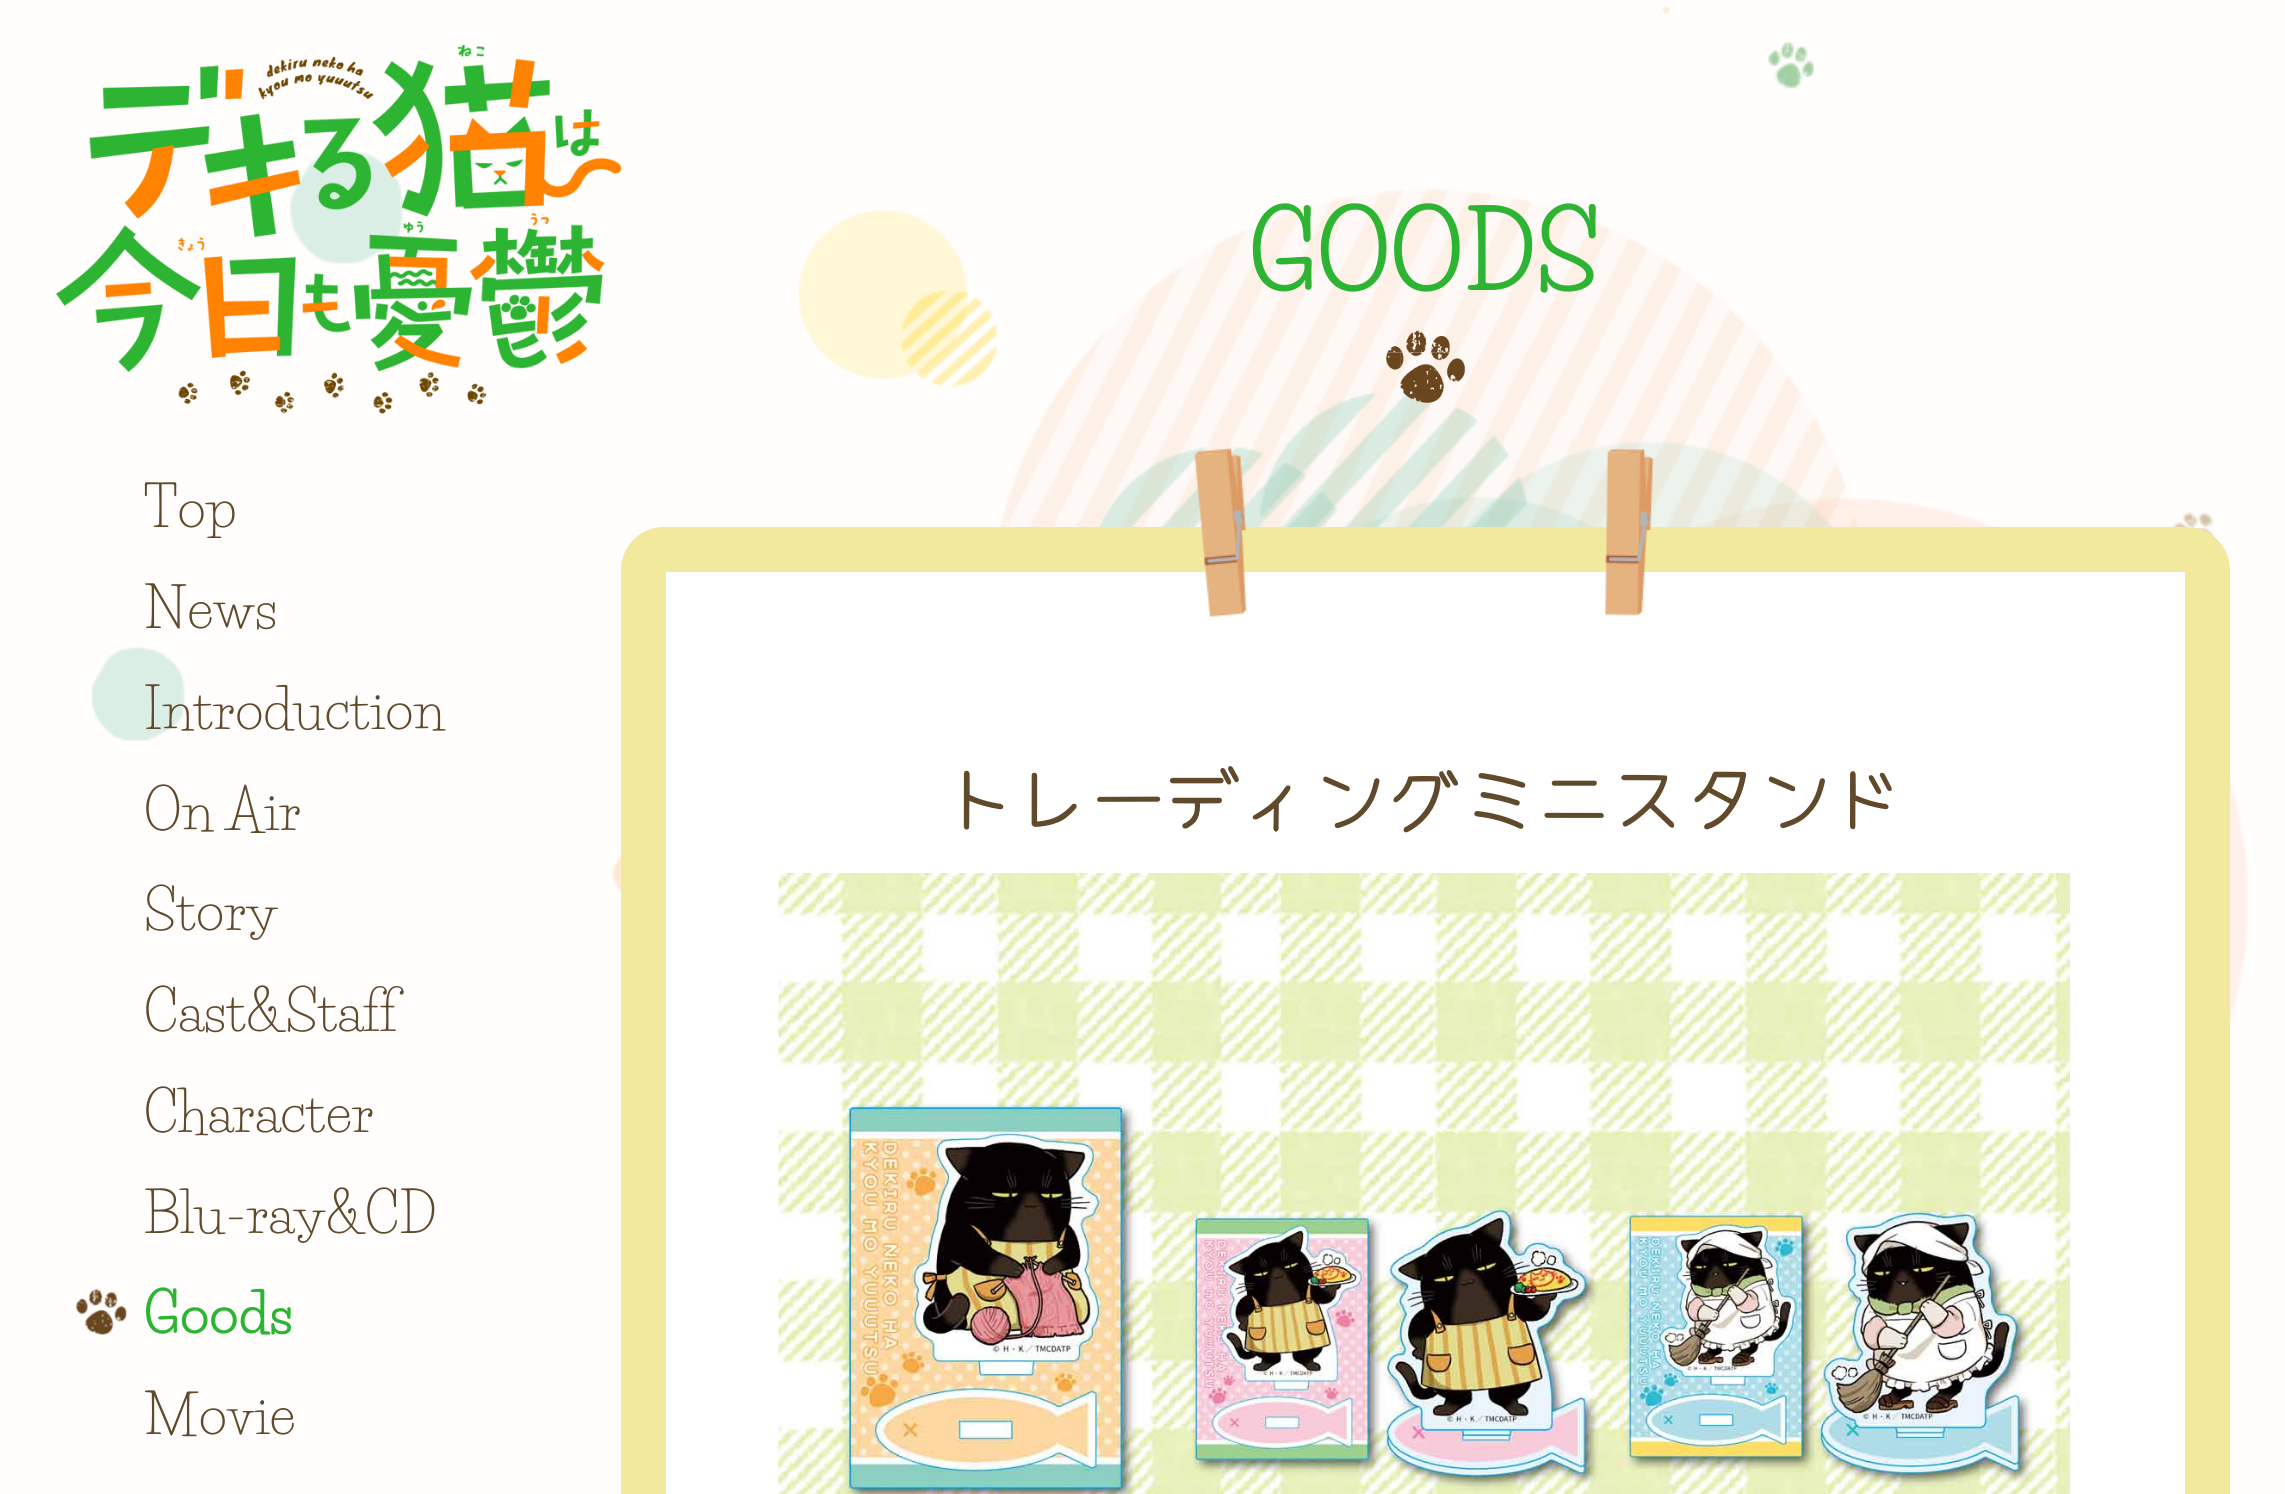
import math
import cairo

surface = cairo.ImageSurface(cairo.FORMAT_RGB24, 2285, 1494)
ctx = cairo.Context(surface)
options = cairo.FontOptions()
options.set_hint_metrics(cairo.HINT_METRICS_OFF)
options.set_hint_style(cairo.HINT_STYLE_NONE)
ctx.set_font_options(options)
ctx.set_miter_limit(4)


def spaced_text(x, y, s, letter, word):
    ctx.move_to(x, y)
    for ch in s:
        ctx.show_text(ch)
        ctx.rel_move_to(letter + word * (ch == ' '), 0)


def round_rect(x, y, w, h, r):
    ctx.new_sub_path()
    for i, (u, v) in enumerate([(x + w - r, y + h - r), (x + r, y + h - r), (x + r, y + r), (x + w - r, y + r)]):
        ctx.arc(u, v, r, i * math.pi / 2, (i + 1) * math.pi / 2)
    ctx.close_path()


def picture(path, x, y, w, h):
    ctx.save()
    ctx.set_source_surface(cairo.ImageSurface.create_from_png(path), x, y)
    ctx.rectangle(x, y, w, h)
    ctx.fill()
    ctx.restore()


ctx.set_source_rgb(1, 0.996, 0.992)
ctx.paint()
picture("img4.png", 998, 188, 1251, 840)
picture("img10.png", 798, 209, 200, 179)
picture("img11.png", 1097, 391, 737, 136)
picture("img1.png", 611, 6, 1059, 888)
picture("img2.png", 1768, 42, 46, 47)
picture("img3.png", 91, 150, 313, 591)
picture("img5.png", 56, 45, 565, 369)
ctx.select_font_face("Life Savers")
ctx.set_font_size(54.5)
ctx.set_source_rgb(0.38, 0.286, 0.169)
spaced_text(144, 527, "Top", 0.5, 0)
spaced_text(144, 628, "News", 0.5, 0)
spaced_text(144, 729, "Introduction", 0.5, 0)
spaced_text(144, 830, "On Air", 0.5, 0)
spaced_text(144, 930, "Story", 0.5, 0)
spaced_text(144, 1031, "Cast&Staff", 0.5, 0)
spaced_text(144, 1132, "Character", 0.5, 0)
spaced_text(144, 1233, "Blu-ray&CD", 0.5, 0)
picture("img6.png", 76, 1288, 51, 47)
ctx.select_font_face("Life Savers", cairo.FONT_SLANT_NORMAL, cairo.FONT_WEIGHT_BOLD)
ctx.set_source_rgb(0.176, 0.706, 0.196)
spaced_text(144, 1333, "Goods", 0.5, 0)
ctx.select_font_face("Life Savers")
ctx.set_source_rgb(0.38, 0.286, 0.169)
spaced_text(144, 1434, "Movie", 0.5, 0)
ctx.select_font_face("Life Savers", cairo.FONT_SLANT_NORMAL, cairo.FONT_WEIGHT_BOLD)
ctx.set_font_size(103.5)
ctx.set_source_rgb(0.176, 0.706, 0.196)
ctx.move_to(1249, 290)
ctx.show_text("GOODS")
picture("img7.png", 1386, 330, 79, 73)
picture("img12.png", 2173, 512, 42, 26)
ctx.set_source_rgb(1, 1, 1)
round_rect(643.5, 549.5, 1564, 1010, 20.5)
ctx.fill_preserve()
ctx.set_source_rgb(0.945, 0.914, 0.616)
ctx.set_line_width(45)
ctx.stroke()
picture("img8.png", 1194, 447, 460, 170)
ctx.select_font_face("Yomogi", cairo.FONT_SLANT_NORMAL, cairo.FONT_WEIGHT_BOLD)
ctx.set_font_size(74.25)
ctx.set_source_rgb(0.38, 0.286, 0.169)
ctx.move_to(942, 827)
ctx.show_text("トレーディングミニスタンド")
picture("img9.png", 778, 873, 1292, 621)
surface.write_to_png("page.png")
